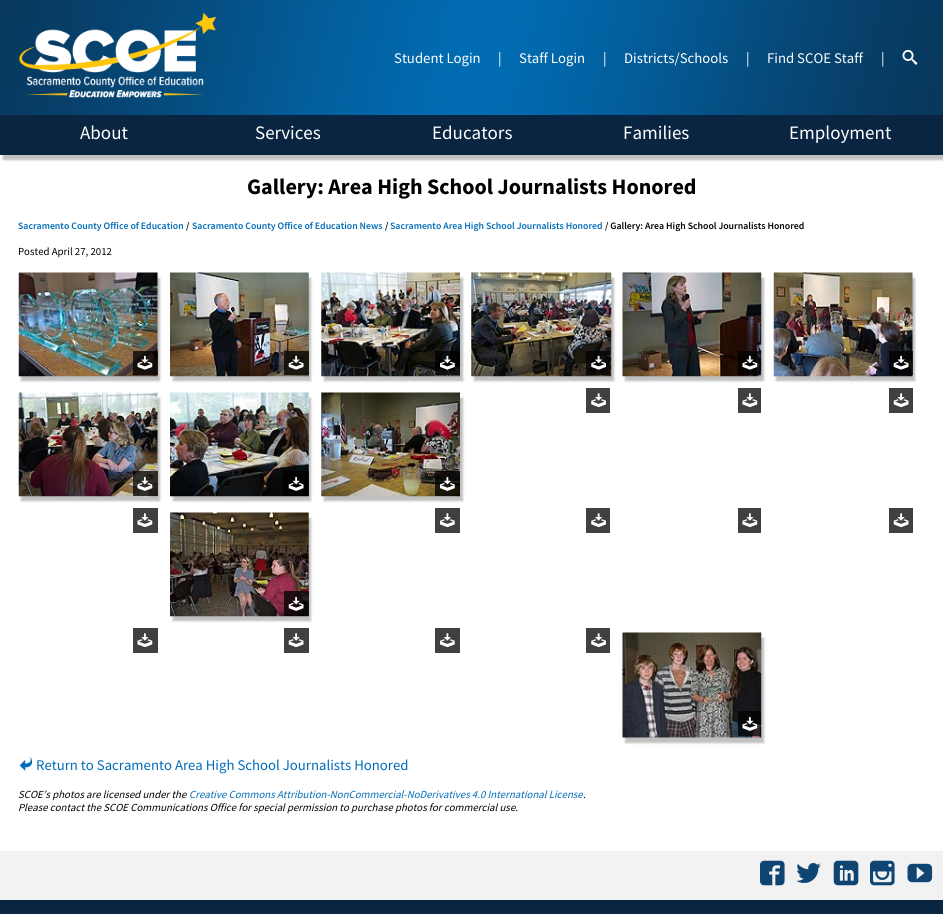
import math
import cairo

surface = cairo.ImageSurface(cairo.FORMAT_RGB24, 943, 914)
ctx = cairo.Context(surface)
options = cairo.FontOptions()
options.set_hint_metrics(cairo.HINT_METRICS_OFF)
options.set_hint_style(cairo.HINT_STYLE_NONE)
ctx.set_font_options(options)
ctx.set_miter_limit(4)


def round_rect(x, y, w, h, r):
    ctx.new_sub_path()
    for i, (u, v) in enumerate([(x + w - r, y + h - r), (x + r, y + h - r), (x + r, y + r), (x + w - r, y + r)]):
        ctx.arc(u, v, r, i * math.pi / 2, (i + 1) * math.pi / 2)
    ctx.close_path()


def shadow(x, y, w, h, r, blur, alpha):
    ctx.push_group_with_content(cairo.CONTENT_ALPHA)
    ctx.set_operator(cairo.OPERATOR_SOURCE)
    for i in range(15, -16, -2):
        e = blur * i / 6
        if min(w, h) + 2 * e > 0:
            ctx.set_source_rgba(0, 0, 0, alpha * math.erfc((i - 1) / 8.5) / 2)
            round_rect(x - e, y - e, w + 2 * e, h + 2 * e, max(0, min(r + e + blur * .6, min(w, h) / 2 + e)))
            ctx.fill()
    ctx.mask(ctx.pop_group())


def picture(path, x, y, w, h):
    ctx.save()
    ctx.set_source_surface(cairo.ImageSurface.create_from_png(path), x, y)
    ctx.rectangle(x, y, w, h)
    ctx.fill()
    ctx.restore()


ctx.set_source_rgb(1, 1, 1)
ctx.paint()
picture("img1.png", 0, 0, 943, 115)
picture("img2.png", 19, 12, 197, 86)
ctx.select_font_face("Source Sans Pro")
ctx.set_font_size(14.75)
ctx.set_source_rgb(1, 1, 1)
ctx.move_to(394, 63)
ctx.show_text("Student Login")
ctx.move_to(498, 63)
ctx.show_text("|")
ctx.move_to(519, 63)
ctx.show_text("Staff Login")
ctx.move_to(603, 63)
ctx.show_text("|")
ctx.move_to(624, 63)
ctx.show_text("Districts/Schools")
ctx.move_to(746, 63)
ctx.show_text("|")
ctx.move_to(767, 63)
ctx.show_text("Find SCOE Staff")
ctx.move_to(881, 63)
ctx.show_text("|")
picture("img3.png", 902, 49, 16, 16)
ctx.set_source_rgb(0, 0, 0)
shadow(3, 120, 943, 40, 0, 1, 0.25)
ctx.set_source_rgb(0.039, 0.145, 0.255)
ctx.rectangle(0, 115, 943, 40)
ctx.fill()
ctx.set_font_size(19)
ctx.set_source_rgb(1, 1, 1)
ctx.move_to(80, 139)
ctx.show_text("About")
ctx.move_to(255, 139)
ctx.show_text("Services")
ctx.move_to(432, 139)
ctx.show_text("Educators")
ctx.move_to(623, 139)
ctx.show_text("Families")
ctx.move_to(789, 139)
ctx.show_text("Employment")
ctx.select_font_face("Source Sans Pro", cairo.FONT_SLANT_NORMAL, cairo.FONT_WEIGHT_BOLD)
ctx.set_font_size(22.1)
ctx.set_source_rgb(0, 0, 0)
ctx.move_to(247, 194)
ctx.show_text("Gallery: Area High School Journalists Honored")
ctx.select_font_face("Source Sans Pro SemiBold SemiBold")
ctx.set_font_size(9.8)
ctx.set_source_rgb(0.004, 0.424, 0.722)
ctx.move_to(18, 229)
ctx.show_text("Sacramento County Office of Education")
ctx.set_source_rgb(0, 0, 0)
ctx.move_to(186, 229)
ctx.show_text("/")
ctx.set_source_rgb(0.004, 0.424, 0.722)
ctx.move_to(192, 229)
ctx.show_text("Sacramento County Office of Education News")
ctx.set_source_rgb(0, 0, 0)
ctx.move_to(385, 229)
ctx.show_text("/")
ctx.set_source_rgb(0.004, 0.424, 0.722)
ctx.move_to(390, 229)
ctx.show_text("Sacramento Area High School Journalists Honored")
ctx.set_source_rgb(0, 0, 0)
ctx.move_to(605, 229)
ctx.show_text("/ Gallery: Area High School Journalists Honored")
ctx.select_font_face("Source Sans Pro")
ctx.set_font_size(10.8)
ctx.move_to(18, 255)
ctx.show_text("Posted April 27, 2012")
ctx.set_source_rgb(0, 0, 0)
shadow(21, 278, 139, 103, 0, 1, 0.25)
picture("img4.png", 18, 272, 140, 105)
ctx.set_source_rgba(0, 0, 0, 0.75)
ctx.rectangle(133, 351, 25, 24)
ctx.fill()
picture("img5.png", 137, 355, 16, 15)
ctx.set_source_rgb(0, 0, 0)
shadow(173, 278, 138, 103, 0, 1, 0.25)
picture("img6.png", 170, 272, 139, 105)
ctx.set_source_rgba(0, 0, 0, 0.75)
ctx.rectangle(284, 351, 25, 24)
ctx.fill()
picture("img7.png", 288, 355, 16, 15)
ctx.set_source_rgb(0, 0, 0)
shadow(324, 278, 139, 103, 0, 1, 0.25)
picture("img8.png", 321, 272, 139, 105)
ctx.set_source_rgba(0, 0, 0, 0.75)
ctx.rectangle(435, 351, 25, 24)
ctx.fill()
picture("img9.png", 440, 355, 15, 15)
ctx.set_source_rgb(0, 0, 0)
shadow(474, 278, 140, 103, 0, 1, 0.25)
picture("img10.png", 471, 272, 141, 105)
ctx.set_source_rgba(0, 0, 0, 0.75)
ctx.rectangle(586, 351, 24, 24)
ctx.fill()
picture("img11.png", 591, 355, 15, 15)
ctx.set_source_rgb(0, 0, 0)
shadow(625, 278, 139, 103, 0, 1, 0.25)
picture("img12.png", 622, 272, 140, 105)
ctx.set_source_rgba(0, 0, 0, 0.75)
ctx.rectangle(738, 351, 23, 24)
ctx.fill()
picture("img13.png", 742, 355, 16, 15)
ctx.set_source_rgb(0, 0, 0)
shadow(776, 278, 139, 103, 0, 1, 0.25)
picture("img14.png", 773, 272, 140, 105)
ctx.set_source_rgba(0, 0, 0, 0.75)
ctx.rectangle(889, 351, 24, 24)
ctx.fill()
picture("img15.png", 893, 355, 16, 15)
ctx.set_source_rgb(0, 0, 0)
shadow(21, 398, 139, 103, 0, 1, 0.25)
picture("img16.png", 18, 392, 140, 105)
ctx.set_source_rgba(0, 0, 0, 0.75)
ctx.rectangle(133, 471, 25, 25)
ctx.fill()
picture("img17.png", 137, 477, 16, 14)
ctx.set_source_rgb(0, 0, 0)
shadow(173, 398, 138, 103, 0, 1, 0.25)
picture("img18.png", 170, 392, 139, 105)
ctx.set_source_rgba(0, 0, 0, 0.75)
ctx.rectangle(284, 471, 25, 25)
ctx.fill()
picture("img19.png", 288, 477, 16, 14)
ctx.set_source_rgb(0, 0, 0)
shadow(324, 398, 139, 103, 0, 1, 0.25)
picture("img20.png", 321, 392, 139, 105)
ctx.set_source_rgba(0, 0, 0, 0.75)
ctx.rectangle(435, 471, 25, 25)
ctx.fill()
picture("img21.png", 440, 477, 15, 14)
ctx.set_source_rgb(0.251, 0.251, 0.251)
ctx.rectangle(586, 388, 24, 25)
ctx.fill()
picture("img22.png", 591, 393, 15, 15)
ctx.rectangle(738, 388, 23, 25)
ctx.fill()
picture("img23.png", 742, 393, 16, 15)
ctx.rectangle(889, 388, 24, 25)
ctx.fill()
picture("img24.png", 893, 393, 16, 15)
ctx.rectangle(133, 508, 25, 25)
ctx.fill()
picture("img23.png", 137, 513, 16, 15)
ctx.set_source_rgb(0, 0, 0)
shadow(173, 518, 138, 103, 0, 1, 0.25)
picture("img25.png", 170, 512, 139, 105)
ctx.set_source_rgba(0, 0, 0, 0.75)
ctx.rectangle(284, 591, 25, 25)
ctx.fill()
picture("img26.png", 288, 597, 16, 14)
ctx.set_source_rgb(0.251, 0.251, 0.251)
ctx.rectangle(435, 508, 25, 25)
ctx.fill()
picture("img27.png", 440, 513, 15, 15)
ctx.rectangle(586, 508, 24, 25)
ctx.fill()
picture("img22.png", 591, 513, 15, 15)
ctx.rectangle(738, 508, 23, 25)
ctx.fill()
picture("img23.png", 742, 513, 16, 15)
ctx.rectangle(889, 508, 24, 25)
ctx.fill()
picture("img24.png", 893, 513, 16, 15)
ctx.rectangle(133, 628, 25, 25)
ctx.fill()
picture("img23.png", 137, 633, 16, 15)
ctx.rectangle(284, 628, 25, 25)
ctx.fill()
picture("img24.png", 288, 633, 16, 15)
ctx.rectangle(435, 628, 25, 25)
ctx.fill()
picture("img27.png", 440, 633, 15, 15)
ctx.rectangle(586, 628, 24, 25)
ctx.fill()
picture("img22.png", 591, 633, 15, 15)
ctx.set_source_rgb(0, 0, 0)
shadow(625, 638, 139, 105, 0, 1, 0.25)
picture("img28.png", 622, 632, 140, 106)
ctx.set_source_rgba(0, 0, 0, 0.75)
ctx.rectangle(738, 711, 23, 25)
ctx.fill()
picture("img29.png", 742, 717, 16, 14)
picture("img30.png", 19, 756, 14, 15)
ctx.set_font_size(14.75)
ctx.set_source_rgb(0.004, 0.424, 0.722)
ctx.move_to(36, 770)
ctx.show_text("Return to Sacramento Area High School Journalists Honored")
ctx.select_font_face("Source Sans Pro", cairo.FONT_SLANT_ITALIC)
ctx.set_font_size(10.8)
ctx.set_source_rgb(0, 0, 0)
ctx.move_to(18, 798)
ctx.show_text("SCOE’s photos are licensed under the")
ctx.set_source_rgb(0.004, 0.424, 0.722)
ctx.move_to(189, 798)
ctx.show_text("Creative Commons Attribution-NonCommercial-NoDerivatives 4.0 International License")
ctx.set_source_rgb(0, 0, 0)
ctx.move_to(583, 798)
ctx.show_text(".")
ctx.move_to(18, 811)
ctx.show_text("Please contact the SCOE Communications Office for special permission to purchase photos for commercial use.")
ctx.set_source_rgb(0.039, 0.145, 0.255)
ctx.rectangle(0, 900, 943, 14)
ctx.fill()
ctx.set_source_rgb(0.949, 0.949, 0.949)
ctx.rectangle(0, 851, 943, 49)
ctx.fill()
picture("img31.png", 760, 860, 25, 26)
picture("img32.png", 796, 863, 25, 20)
picture("img33.png", 833, 860, 26, 26)
picture("img34.png", 870, 860, 25, 26)
picture("img35.png", 907, 863, 26, 20)
surface.write_to_png("page.png")
